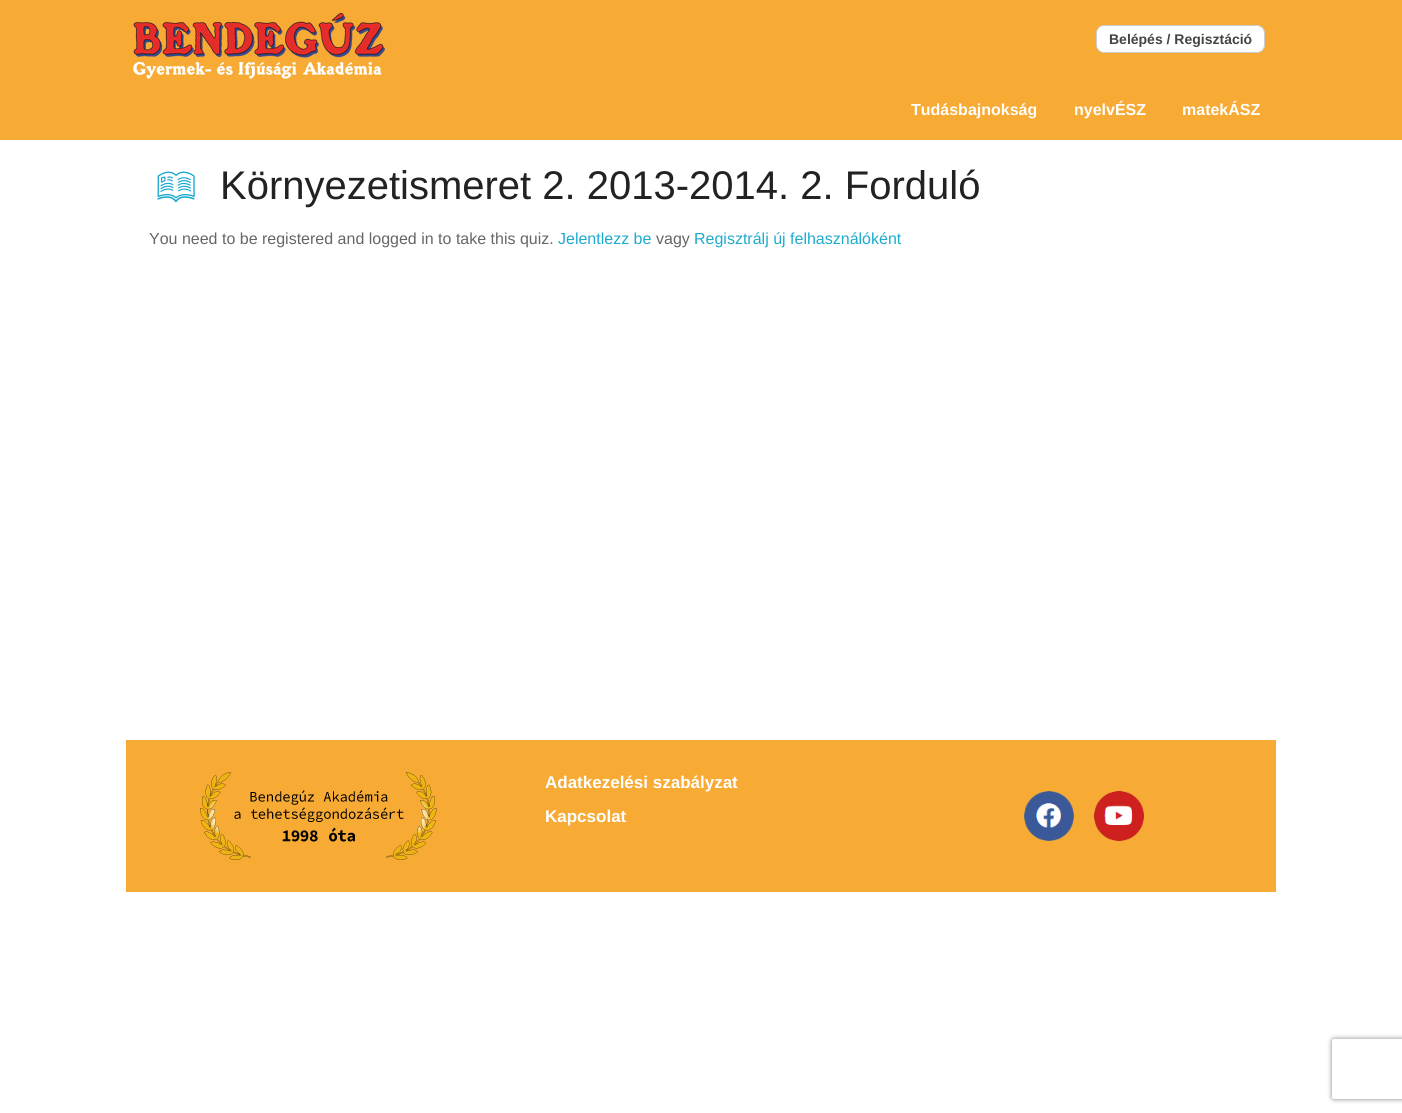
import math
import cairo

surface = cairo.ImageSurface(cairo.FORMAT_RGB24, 1402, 1113)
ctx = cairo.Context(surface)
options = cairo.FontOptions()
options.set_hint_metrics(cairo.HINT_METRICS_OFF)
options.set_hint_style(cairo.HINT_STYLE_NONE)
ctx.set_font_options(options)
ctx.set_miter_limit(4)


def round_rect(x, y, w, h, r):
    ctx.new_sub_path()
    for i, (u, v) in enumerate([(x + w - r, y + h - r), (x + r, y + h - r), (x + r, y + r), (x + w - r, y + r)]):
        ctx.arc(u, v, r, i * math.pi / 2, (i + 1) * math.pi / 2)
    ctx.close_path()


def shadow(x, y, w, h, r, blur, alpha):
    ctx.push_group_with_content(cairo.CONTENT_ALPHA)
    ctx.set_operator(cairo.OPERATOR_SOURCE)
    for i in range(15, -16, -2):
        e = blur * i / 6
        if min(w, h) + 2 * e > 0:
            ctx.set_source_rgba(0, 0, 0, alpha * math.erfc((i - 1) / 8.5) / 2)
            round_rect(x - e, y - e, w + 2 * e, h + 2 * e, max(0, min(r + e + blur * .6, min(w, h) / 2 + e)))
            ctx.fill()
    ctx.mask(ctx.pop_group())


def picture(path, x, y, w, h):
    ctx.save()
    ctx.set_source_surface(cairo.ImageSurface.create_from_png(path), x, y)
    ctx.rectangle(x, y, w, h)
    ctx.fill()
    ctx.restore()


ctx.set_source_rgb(1, 1, 1)
ctx.paint()
ctx.set_source_rgb(0.965, 0.667, 0.204)
ctx.rectangle(0, 0, 1402, 140)
ctx.fill()
picture("img1.png", 133, 13, 252, 66)
ctx.set_source_rgb(1, 1, 1)
round_rect(1096.5, 25.5, 168, 27, 7.5)
ctx.fill_preserve()
ctx.set_source_rgb(0.8, 0.8, 0.8)
ctx.set_line_width(1)
ctx.stroke()
ctx.select_font_face("Liberation Sans", cairo.FONT_SLANT_NORMAL, cairo.FONT_WEIGHT_BOLD)
ctx.set_font_size(14)
ctx.set_source_rgb(0.267, 0.267, 0.267)
ctx.move_to(1109, 44)
ctx.show_text("Belépés / Regisztáció")
ctx.set_font_size(16)
ctx.set_source_rgb(1, 1, 1)
ctx.move_to(911, 115)
ctx.show_text("Tudásbajnokság")
ctx.move_to(1074, 115)
ctx.show_text("nyelvÉSZ")
ctx.move_to(1182, 115)
ctx.show_text("matekÁSZ")
picture("img2.png", 157, 171, 38, 32)
ctx.select_font_face("Liberation Sans")
ctx.set_font_size(40)
ctx.set_source_rgb(0.133, 0.133, 0.133)
ctx.move_to(220, 199)
ctx.show_text("Környezetismeret 2. 2013-2014. 2. Forduló")
ctx.set_font_size(16)
ctx.set_source_rgb(0.4, 0.4, 0.4)
ctx.move_to(149, 244)
ctx.show_text("You need to be registered and logged in to take this quiz.")
ctx.set_source_rgb(0.118, 0.667, 0.808)
ctx.move_to(558, 244)
ctx.show_text("Jelentlezz be")
ctx.set_source_rgb(0.4, 0.4, 0.4)
ctx.move_to(656, 244)
ctx.show_text("vagy")
ctx.set_source_rgb(0.118, 0.667, 0.808)
ctx.move_to(694, 244)
ctx.show_text("Regisztrálj új felhasználóként")
ctx.set_source_rgb(0.965, 0.667, 0.204)
ctx.rectangle(126, 740, 1150, 152)
ctx.fill()
picture("img3.png", 200, 772, 237, 88)
ctx.select_font_face("Liberation Sans", cairo.FONT_SLANT_NORMAL, cairo.FONT_WEIGHT_BOLD)
ctx.set_font_size(17)
ctx.set_source_rgb(1, 1, 1)
ctx.move_to(545, 788)
ctx.show_text("Adatkezelési szabályzat")
ctx.move_to(545, 822)
ctx.show_text("Kapcsolat")
picture("img4.png", 1024, 791, 50, 50)
picture("img5.png", 1094, 791, 50, 50)
ctx.save()
ctx.set_fill_rule(cairo.FILL_RULE_EVEN_ODD)
ctx.new_path()
ctx.move_to(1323, 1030)
ctx.line_to(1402, 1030)
ctx.line_to(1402, 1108)
ctx.line_to(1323, 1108)
ctx.close_path()
ctx.move_to(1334, 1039)
ctx.line_to(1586, 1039)
ctx.curve_to(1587, 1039, 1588, 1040, 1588, 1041)
ctx.line_to(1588, 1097)
ctx.curve_to(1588, 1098, 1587, 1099, 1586, 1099)
ctx.line_to(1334, 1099)
ctx.curve_to(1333, 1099, 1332, 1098, 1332, 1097)
ctx.line_to(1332, 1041)
ctx.curve_to(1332, 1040, 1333, 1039, 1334, 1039)
ctx.close_path()
ctx.clip()
ctx.set_source_rgb(0.502, 0.502, 0.502)
shadow(1332, 1039, 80, 60, 2, 2.5, 1)
ctx.restore()
surface.write_to_png("page.png")
